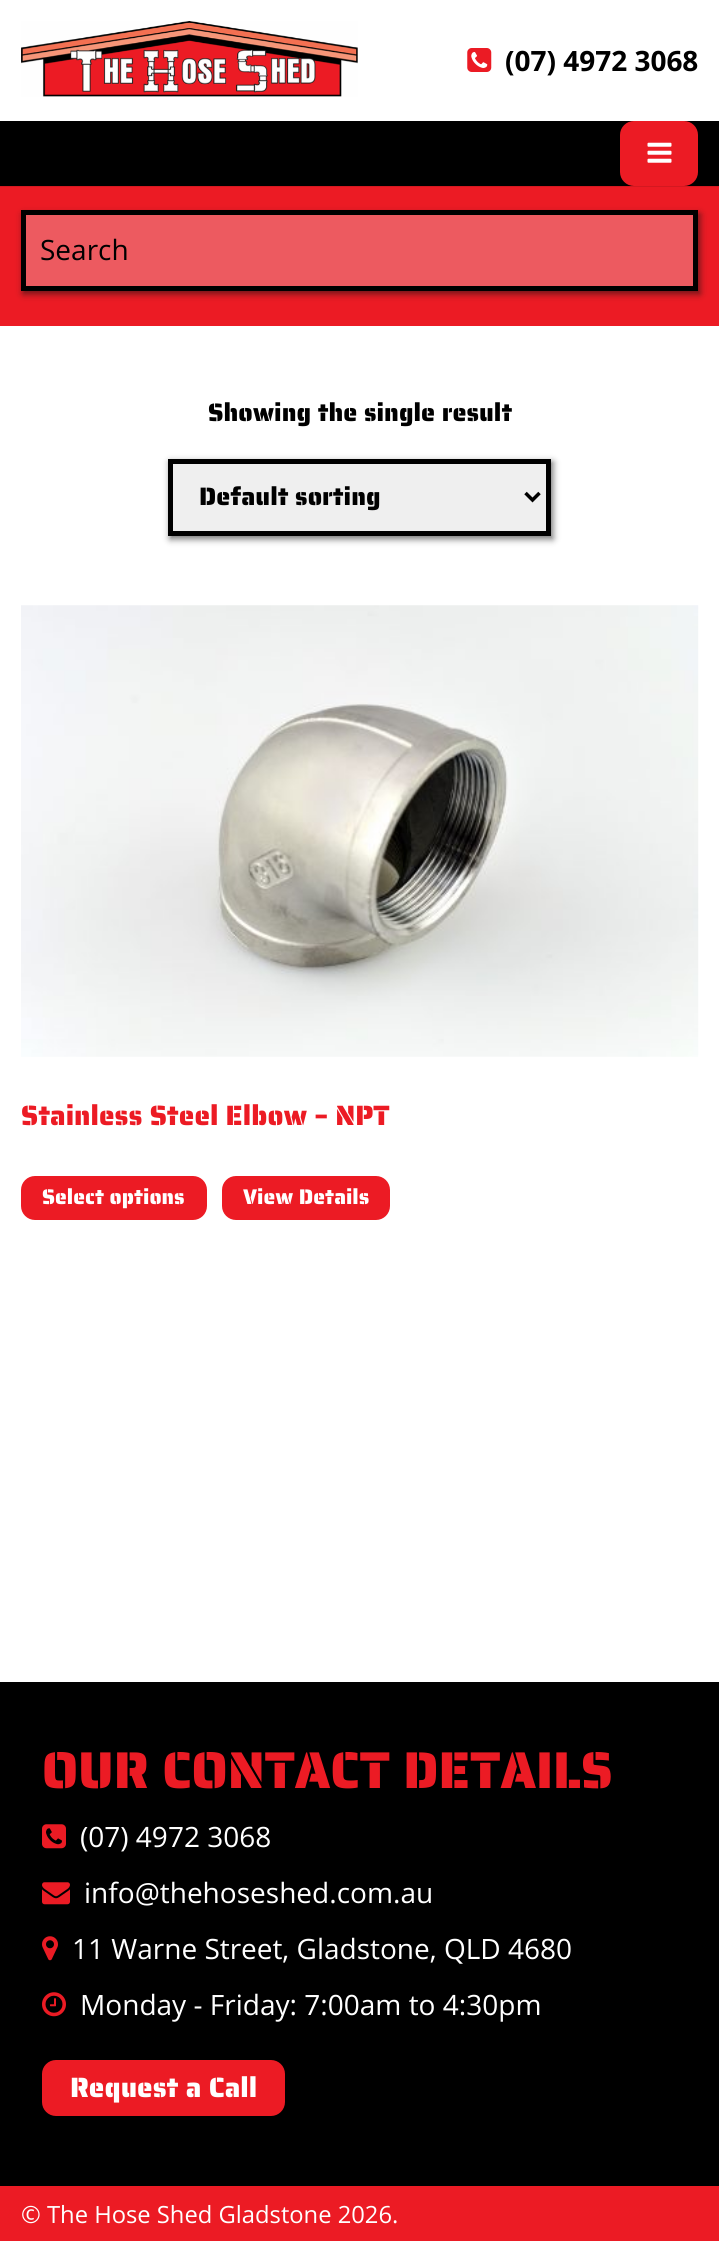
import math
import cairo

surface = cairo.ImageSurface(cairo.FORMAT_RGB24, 719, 2241)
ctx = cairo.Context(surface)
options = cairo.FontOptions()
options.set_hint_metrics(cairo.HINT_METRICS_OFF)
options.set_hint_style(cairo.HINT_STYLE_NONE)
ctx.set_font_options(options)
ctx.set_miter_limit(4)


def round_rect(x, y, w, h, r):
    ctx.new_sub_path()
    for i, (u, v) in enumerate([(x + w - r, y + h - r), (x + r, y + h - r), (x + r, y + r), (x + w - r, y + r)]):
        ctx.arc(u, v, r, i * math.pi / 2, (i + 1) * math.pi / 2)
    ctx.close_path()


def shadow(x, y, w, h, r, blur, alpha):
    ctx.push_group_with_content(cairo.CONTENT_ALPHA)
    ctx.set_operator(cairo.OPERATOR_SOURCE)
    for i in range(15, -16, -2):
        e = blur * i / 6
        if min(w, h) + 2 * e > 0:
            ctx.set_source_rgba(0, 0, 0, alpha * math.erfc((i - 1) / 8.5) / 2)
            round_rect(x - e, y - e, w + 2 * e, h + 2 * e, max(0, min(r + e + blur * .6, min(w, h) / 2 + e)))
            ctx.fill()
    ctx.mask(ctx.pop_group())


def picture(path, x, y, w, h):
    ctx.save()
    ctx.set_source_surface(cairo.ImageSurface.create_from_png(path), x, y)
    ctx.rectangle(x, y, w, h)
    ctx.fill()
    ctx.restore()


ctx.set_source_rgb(1, 1, 1)
ctx.paint()
ctx.set_source_rgb(0.831, 0.094, 0.125)
ctx.rectangle(0, 186, 719, 1)
ctx.fill()
picture("img1.png", 21, 21, 337, 76)
picture("img2.png", 467, 48, 25, 24)
ctx.select_font_face("Open Sans", cairo.FONT_SLANT_NORMAL, cairo.FONT_WEIGHT_BOLD)
ctx.set_font_size(28)
ctx.set_source_rgb(0, 0, 0)
ctx.move_to(505, 71)
ctx.show_text("(07) 4972 3068")
ctx.rectangle(0, 121, 719, 65)
ctx.fill()
ctx.set_source_rgb(0.922, 0.106, 0.141)
round_rect(620, 121, 78, 65, 14)
ctx.fill()
picture("img3.png", 647, 142, 25, 21)
ctx.rectangle(0, 187, 719, 139)
ctx.fill()
ctx.save()
ctx.set_fill_rule(cairo.FILL_RULE_EVEN_ODD)
ctx.new_path()
ctx.move_to(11, 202)
ctx.line_to(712, 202)
ctx.line_to(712, 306)
ctx.line_to(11, 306)
ctx.close_path()
ctx.move_to(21, 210)
ctx.line_to(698, 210)
ctx.line_to(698, 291)
ctx.line_to(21, 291)
ctx.close_path()
ctx.clip()
ctx.set_source_rgb(0.071, 0.071, 0.071)
shadow(23, 214, 677, 80, 0, 3.5, 0.6)
ctx.restore()
ctx.set_source_rgba(0.937, 0.937, 0.937, 0.3)
ctx.rectangle(23.5, 212.5, 672, 76)
ctx.fill_preserve()
ctx.set_source_rgb(0, 0, 0)
ctx.set_line_width(5)
ctx.stroke()
ctx.select_font_face("Open Sans")
ctx.move_to(40, 260)
ctx.show_text("Search")
ctx.select_font_face("Saira Stencil One")
ctx.set_font_size(25.25)
ctx.move_to(208, 421)
ctx.show_text("Showing the single result")
ctx.set_source_rgb(0.071, 0.071, 0.071)
shadow(170, 462, 383, 77, 0, 3.5, 0.6)
ctx.set_source_rgb(0.937, 0.937, 0.937)
ctx.rectangle(170.5, 461.5, 378, 72)
ctx.fill_preserve()
ctx.set_source_rgb(0, 0, 0)
ctx.stroke()
ctx.new_path()
ctx.move_to(525.5, 493)
ctx.line_to(532.5, 500)
ctx.line_to(539.5, 493)
ctx.set_line_width(3.5)
ctx.stroke()
ctx.move_to(199, 505)
ctx.show_text("Default sorting")
picture("img4.png", 21, 605, 678, 452)
ctx.set_font_size(28)
ctx.set_source_rgb(0.922, 0.106, 0.141)
ctx.move_to(21, 1125)
ctx.show_text("Stainless Steel Elbow – NPT")
round_rect(21, 1176, 186, 44, 14)
ctx.fill()
ctx.set_font_size(21.25)
ctx.set_source_rgb(1, 1, 1)
ctx.move_to(42, 1204)
ctx.show_text("Select options")
ctx.set_source_rgb(0.922, 0.106, 0.141)
round_rect(222, 1176, 168, 44, 14)
ctx.fill()
ctx.set_source_rgb(1, 1, 1)
ctx.move_to(243, 1204)
ctx.show_text("View Details")
ctx.set_source_rgb(0, 0, 0)
ctx.rectangle(0, 1682, 719, 504)
ctx.fill()
ctx.set_font_size(51.75)
ctx.set_source_rgb(0.922, 0.106, 0.141)
ctx.move_to(42, 1788)
ctx.show_text("OUR CONTACT DETAILS")
picture("img5.png", 42, 1824, 24, 25)
ctx.select_font_face("Open Sans")
ctx.set_font_size(28)
ctx.set_source_rgb(1, 1, 1)
ctx.move_to(80, 1847)
ctx.show_text("(07) 4972 3068")
picture("img6.png", 42, 1882, 28, 23)
ctx.move_to(84, 1903)
ctx.show_text("info@thehoseshed.com.au")
picture("img7.png", 42, 1936, 16, 25)
ctx.move_to(72, 1959)
ctx.show_text("11 Warne Street, Gladstone, QLD 4680")
picture("img8.png", 42, 1992, 24, 25)
ctx.move_to(80, 2015)
ctx.show_text("Monday - Friday: 7:00am to 4:30pm")
ctx.set_source_rgb(0.922, 0.106, 0.141)
round_rect(42, 2060, 243, 56, 14)
ctx.fill()
ctx.select_font_face("Saira Stencil One")
ctx.set_source_rgb(1, 1, 1)
ctx.move_to(70, 2097)
ctx.show_text("Request a Call")
ctx.set_source_rgb(0.922, 0.106, 0.141)
ctx.rectangle(0, 2186, 719, 55)
ctx.fill()
ctx.select_font_face("Open Sans")
ctx.set_font_size(23.75)
ctx.set_source_rgb(1, 1, 1)
ctx.move_to(21, 2223)
ctx.show_text("© The Hose Shed Gladstone 2026.")
surface.write_to_png("page.png")
